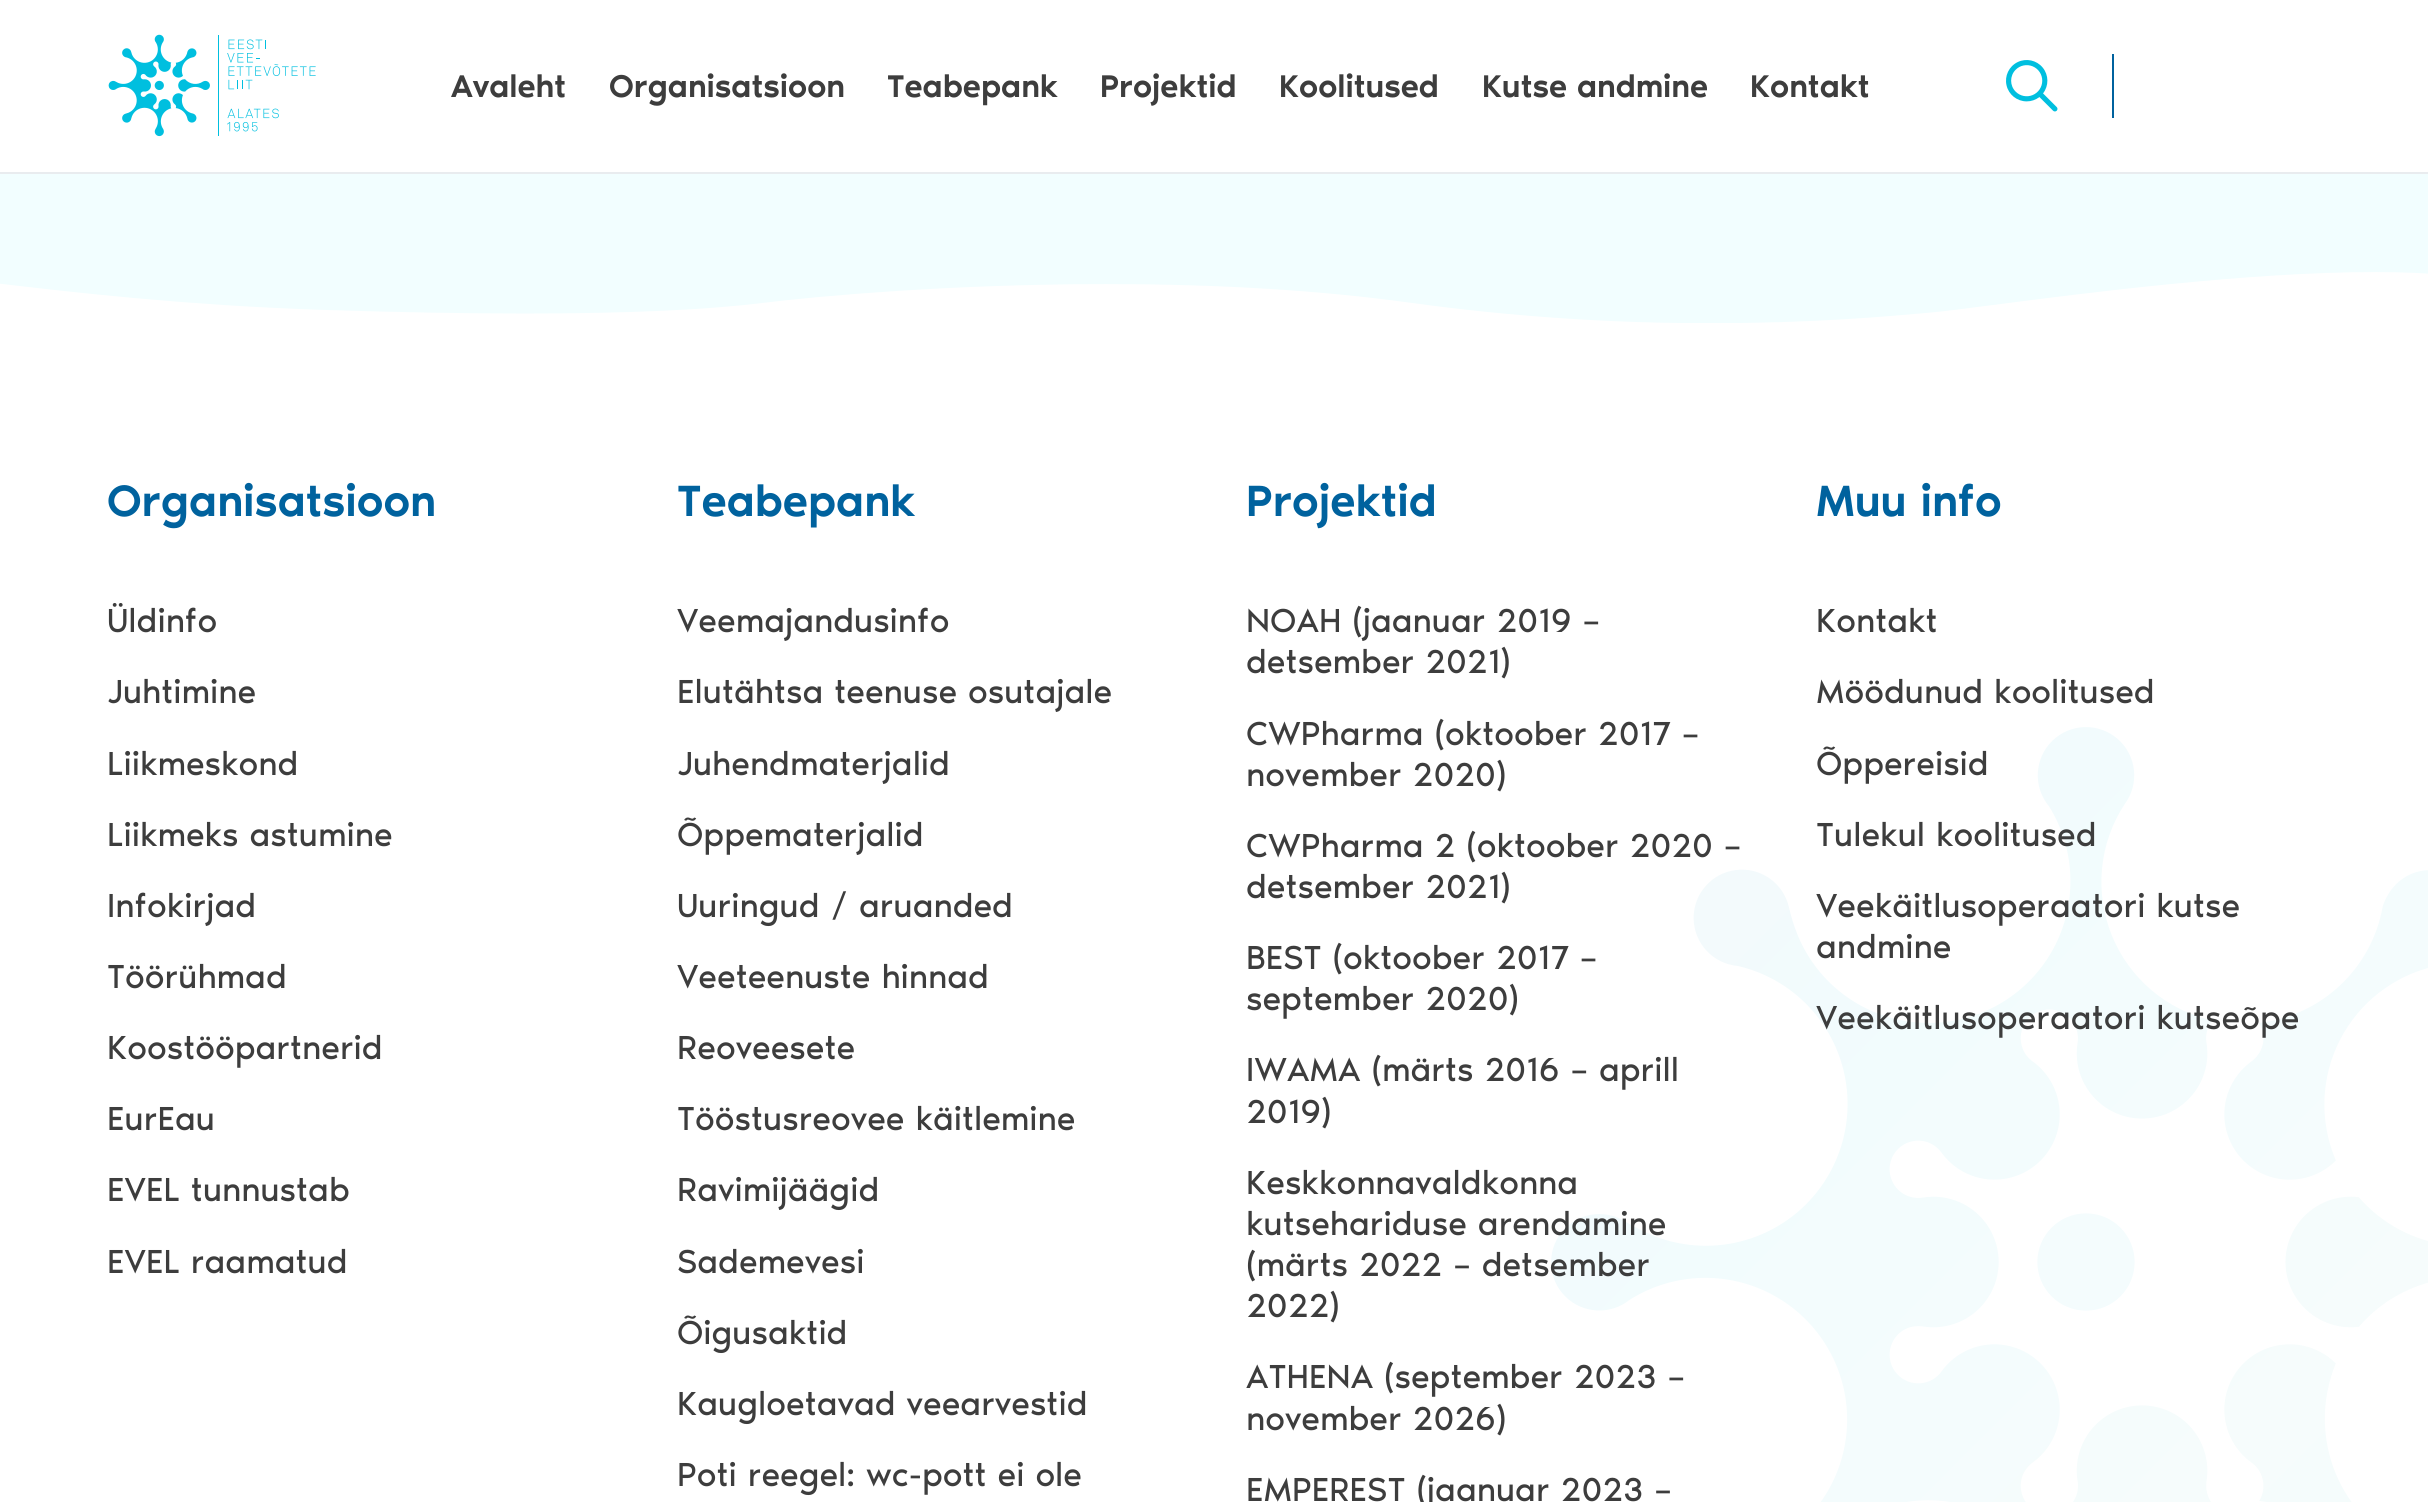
import math
import cairo

surface = cairo.ImageSurface(cairo.FORMAT_RGB24, 2428, 1502)
ctx = cairo.Context(surface)
options = cairo.FontOptions()
options.set_hint_metrics(cairo.HINT_METRICS_OFF)
options.set_hint_style(cairo.HINT_STYLE_NONE)
ctx.set_font_options(options)
ctx.set_miter_limit(4)


def picture(path, x, y, w, h):
    ctx.save()
    ctx.set_source_surface(cairo.ImageSurface.create_from_png(path), x, y)
    ctx.rectangle(x, y, w, h)
    ctx.fill()
    ctx.restore()


ctx.set_source_rgb(0.949, 0.996, 1)
ctx.paint()
ctx.rectangle(-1, -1, 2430, 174)
ctx.set_source_rgb(0.914, 0.925, 0.937)
ctx.stroke()
ctx.set_source_rgb(1, 1, 1)
ctx.rectangle(0, 0, 2428, 172)
ctx.fill()
picture("img1.png", 108, 34, 208, 103)
ctx.select_font_face("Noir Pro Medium")
ctx.set_font_size(32.25)
ctx.set_source_rgb(0.239, 0.239, 0.239)
ctx.move_to(451, 97)
ctx.show_text("Avaleht")
ctx.move_to(609, 97)
ctx.show_text("Organisatsioon")
ctx.move_to(887, 97)
ctx.show_text("Teabepank")
ctx.move_to(1100, 97)
ctx.show_text("Projektid")
ctx.move_to(1279, 97)
ctx.show_text("Koolitused")
ctx.move_to(1482, 97)
ctx.show_text("Kutse andmine")
ctx.move_to(1750, 97)
ctx.show_text("Kontakt")
ctx.set_source_rgb(0, 0.384, 0.62)
ctx.rectangle(2112, 54, 2, 64)
ctx.fill()
picture("img2.png", 2006, 60, 52, 52)
ctx.set_source_rgb(1, 1, 1)
ctx.rectangle(0, 272, 2428, 1230)
ctx.fill()
picture("img3.png", 1551, 727, 877, 775)
picture("img4.png", 0, 264, 2428, 59)
ctx.set_font_size(45)
ctx.set_source_rgb(0, 0.384, 0.62)
ctx.move_to(107, 516)
ctx.show_text("Organisatsioon")
ctx.select_font_face("Noir Pro")
ctx.set_font_size(34.25)
ctx.set_source_rgb(0.239, 0.239, 0.239)
ctx.move_to(107, 632)
ctx.show_text("Üldinfo")
ctx.move_to(107, 703)
ctx.show_text("Juhtimine")
ctx.move_to(107, 775)
ctx.show_text("Liikmeskond")
ctx.move_to(107, 846)
ctx.show_text("Liikmeks astumine")
ctx.move_to(107, 917)
ctx.show_text("Infokirjad")
ctx.move_to(107, 988)
ctx.show_text("Töörühmad")
ctx.move_to(107, 1059)
ctx.show_text("Koostööpartnerid")
ctx.move_to(107, 1130)
ctx.show_text("EurEau")
ctx.move_to(107, 1201)
ctx.show_text("EVEL tunnustab")
ctx.move_to(107, 1273)
ctx.show_text("EVEL raamatud")
ctx.select_font_face("Noir Pro Medium")
ctx.set_font_size(45)
ctx.set_source_rgb(0, 0.384, 0.62)
ctx.move_to(677, 516)
ctx.show_text("Teabepank")
ctx.select_font_face("Noir Pro")
ctx.set_font_size(34.25)
ctx.set_source_rgb(0.239, 0.239, 0.239)
ctx.move_to(677, 632)
ctx.show_text("Veemajandusinfo")
ctx.move_to(677, 703)
ctx.show_text("Elutähtsa teenuse osutajale")
ctx.move_to(677, 775)
ctx.show_text("Juhendmaterjalid")
ctx.move_to(677, 846)
ctx.show_text("Õppematerjalid")
ctx.move_to(677, 917)
ctx.show_text("Uuringud / aruanded")
ctx.move_to(677, 988)
ctx.show_text("Veeteenuste hinnad")
ctx.move_to(677, 1059)
ctx.show_text("Reoveesete")
ctx.move_to(677, 1130)
ctx.show_text("Tööstusreovee käitlemine")
ctx.move_to(677, 1201)
ctx.show_text("Ravimijäägid")
ctx.move_to(677, 1273)
ctx.show_text("Sademevesi")
ctx.move_to(677, 1344)
ctx.show_text("Õigusaktid")
ctx.move_to(677, 1415)
ctx.show_text("Kaugloetavad veearvestid")
ctx.move_to(677, 1486)
ctx.show_text("Poti reegel: wc-pott ei ole")
ctx.select_font_face("Noir Pro Medium")
ctx.set_font_size(45)
ctx.set_source_rgb(0, 0.384, 0.62)
ctx.move_to(1246, 516)
ctx.show_text("Projektid")
ctx.select_font_face("Noir Pro")
ctx.set_font_size(34.25)
ctx.set_source_rgb(0.239, 0.239, 0.239)
ctx.move_to(1246, 632)
ctx.show_text("NOAH (jaanuar 2019 –")
ctx.move_to(1246, 673)
ctx.show_text("detsember 2021)")
ctx.move_to(1246, 745)
ctx.show_text("CWPharma (oktoober 2017 –")
ctx.move_to(1246, 786)
ctx.show_text("november 2020)")
ctx.move_to(1246, 857)
ctx.show_text("CWPharma 2 (oktoober 2020 –")
ctx.move_to(1246, 898)
ctx.show_text("detsember 2021)")
ctx.move_to(1246, 969)
ctx.show_text("BEST (oktoober 2017 –")
ctx.move_to(1246, 1010)
ctx.show_text("september 2020)")
ctx.move_to(1246, 1081)
ctx.show_text("IWAMA (märts 2016 – aprill")
ctx.move_to(1246, 1123)
ctx.show_text("2019)")
ctx.move_to(1246, 1194)
ctx.show_text("Keskkonnavaldkonna")
ctx.move_to(1246, 1235)
ctx.show_text("kutsehariduse arendamine")
ctx.move_to(1246, 1276)
ctx.show_text("(märts 2022 – detsember")
ctx.move_to(1246, 1317)
ctx.show_text("2022)")
ctx.move_to(1246, 1388)
ctx.show_text("ATHENA (september 2023 –")
ctx.move_to(1246, 1430)
ctx.show_text("november 2026)")
ctx.move_to(1246, 1501)
ctx.show_text("EMPEREST (jaanuar 2023 –")
ctx.select_font_face("Noir Pro Medium")
ctx.set_font_size(45)
ctx.set_source_rgb(0, 0.384, 0.62)
ctx.move_to(1816, 516)
ctx.show_text("Muu info")
ctx.select_font_face("Noir Pro")
ctx.set_font_size(34.25)
ctx.set_source_rgb(0.239, 0.239, 0.239)
ctx.move_to(1816, 632)
ctx.show_text("Kontakt")
ctx.move_to(1816, 703)
ctx.show_text("Möödunud koolitused")
ctx.move_to(1816, 775)
ctx.show_text("Õppereisid")
ctx.move_to(1816, 846)
ctx.show_text("Tulekul koolitused")
ctx.move_to(1816, 917)
ctx.show_text("Veekäitlusoperaatori kutse")
ctx.move_to(1816, 958)
ctx.show_text("andmine")
ctx.move_to(1816, 1029)
ctx.show_text("Veekäitlusoperaatori kutseõpe")
surface.write_to_png("page.png")
